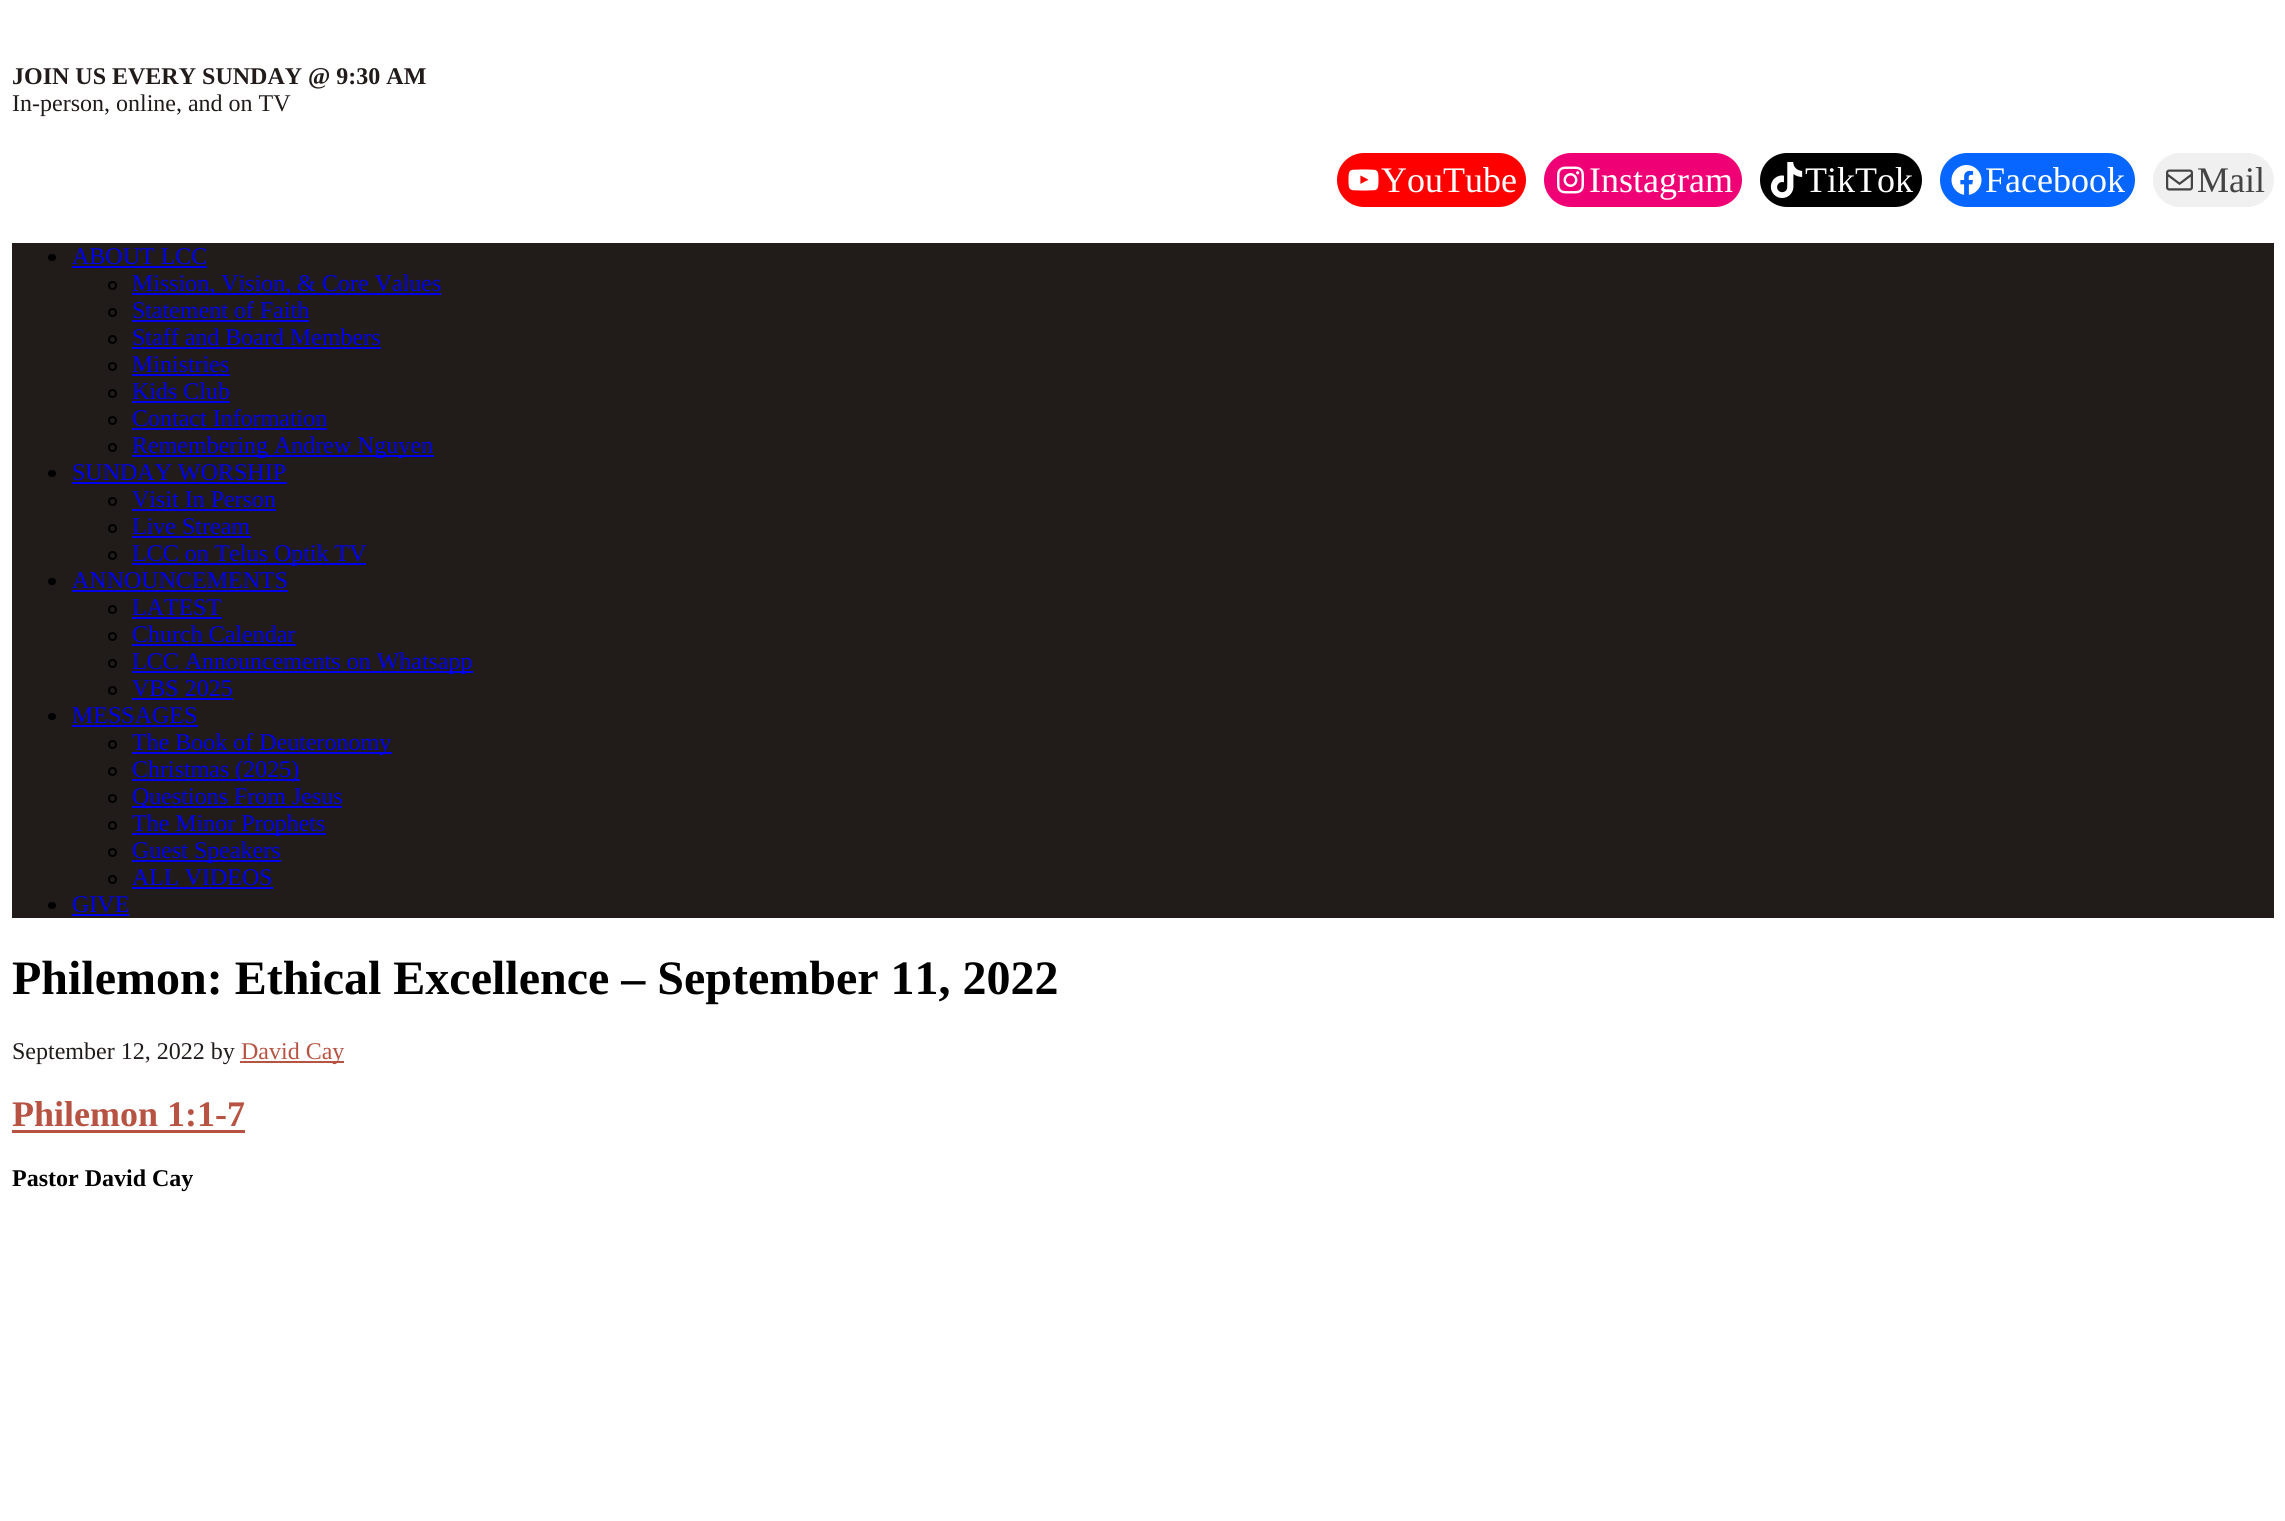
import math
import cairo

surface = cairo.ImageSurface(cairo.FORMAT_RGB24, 2285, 1521)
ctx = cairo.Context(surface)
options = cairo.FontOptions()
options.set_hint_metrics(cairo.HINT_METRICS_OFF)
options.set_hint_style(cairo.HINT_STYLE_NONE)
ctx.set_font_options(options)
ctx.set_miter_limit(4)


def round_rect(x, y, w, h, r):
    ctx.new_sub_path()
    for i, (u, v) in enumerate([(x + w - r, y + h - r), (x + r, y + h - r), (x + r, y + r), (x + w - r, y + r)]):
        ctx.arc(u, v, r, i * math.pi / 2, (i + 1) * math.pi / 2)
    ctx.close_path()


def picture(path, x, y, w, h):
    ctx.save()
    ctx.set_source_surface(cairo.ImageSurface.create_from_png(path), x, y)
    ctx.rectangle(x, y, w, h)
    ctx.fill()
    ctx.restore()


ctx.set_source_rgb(1, 1, 1)
ctx.paint()
ctx.select_font_face("Liberation Serif", cairo.FONT_SLANT_NORMAL, cairo.FONT_WEIGHT_BOLD)
ctx.set_font_size(24)
ctx.set_source_rgb(0.129, 0.106, 0.102)
ctx.move_to(12, 84)
ctx.show_text("JOIN US EVERY SUNDAY @ 9:30 AM")
ctx.select_font_face("Liberation Serif")
ctx.move_to(12, 111)
ctx.show_text("In-person, online, and on TV")
ctx.set_source_rgb(1, 0, 0)
round_rect(1337, 153, 189, 54, 27)
ctx.fill()
picture("img1.png", 1348, 169, 31, 22)
ctx.set_font_size(36)
ctx.set_source_rgb(1, 1, 1)
ctx.move_to(1381, 192)
ctx.show_text("YouTube")
ctx.set_source_rgb(0.941, 0, 0.459)
round_rect(1544, 153, 198, 54, 27)
ctx.fill()
picture("img2.png", 1557, 166, 27, 28)
ctx.set_source_rgb(1, 1, 1)
ctx.move_to(1589, 192)
ctx.show_text("Instagram")
ctx.set_source_rgb(0, 0, 0)
round_rect(1760, 153, 162, 54, 27)
ctx.fill()
picture("img3.png", 1770, 162, 33, 36)
ctx.set_source_rgb(1, 1, 1)
ctx.move_to(1805, 192)
ctx.show_text("TikTok")
ctx.set_source_rgb(0.031, 0.4, 1)
round_rect(1940, 153, 195, 54, 27)
ctx.fill()
picture("img4.png", 1951, 165, 31, 30)
ctx.set_source_rgb(1, 1, 1)
ctx.move_to(1985, 192)
ctx.show_text("Facebook")
ctx.set_source_rgb(0.941, 0.941, 0.941)
round_rect(2153, 153, 121, 54, 27)
ctx.fill()
picture("img5.png", 2166, 169, 27, 22)
ctx.set_source_rgb(0.267, 0.267, 0.267)
ctx.move_to(2197, 192)
ctx.show_text("Mail")
ctx.set_source_rgb(0.129, 0.106, 0.102)
ctx.rectangle(12, 243, 2262, 675)
ctx.fill()
ctx.set_source_rgb(0, 0, 0)
round_rect(48, 254, 8, 7, 3.5)
ctx.fill()
ctx.set_font_size(24)
ctx.set_source_rgb(0, 0, 0.933)
ctx.move_to(72, 264)
ctx.show_text("ABOUT LCC")
ctx.rectangle(72, 266, 135, 2)
ctx.fill()
ctx.arc(112.5, 285.5, 3.5, 0, 2 * math.pi)
ctx.set_source_rgb(0, 0, 0)
ctx.stroke()
ctx.set_source_rgb(0, 0, 0.933)
ctx.rectangle(132, 293, 309, 2)
ctx.fill()
ctx.move_to(132, 291)
ctx.show_text("Mission, Vision, & Core Values")
ctx.new_path()
ctx.arc(112.5, 312.5, 3.5, 0, 2 * math.pi)
ctx.set_source_rgb(0, 0, 0)
ctx.stroke()
ctx.set_source_rgb(0, 0, 0.933)
ctx.move_to(132, 318)
ctx.show_text("Statement of Faith")
ctx.rectangle(132, 320, 177, 2)
ctx.fill()
ctx.arc(112.5, 339.5, 3.5, 0, 2 * math.pi)
ctx.set_source_rgb(0, 0, 0)
ctx.stroke()
ctx.set_source_rgb(0, 0, 0.933)
ctx.move_to(132, 345)
ctx.show_text("Staff and Board Members")
ctx.rectangle(132, 347, 249, 2)
ctx.fill()
ctx.arc(112.5, 366.5, 3.5, 0, 2 * math.pi)
ctx.set_source_rgb(0, 0, 0)
ctx.stroke()
ctx.set_source_rgb(0, 0, 0.933)
ctx.move_to(132, 372)
ctx.show_text("Ministries")
ctx.rectangle(132, 374, 98, 2)
ctx.fill()
ctx.arc(112.5, 393.5, 3.5, 0, 2 * math.pi)
ctx.set_source_rgb(0, 0, 0)
ctx.stroke()
ctx.set_source_rgb(0, 0, 0.933)
ctx.move_to(132, 399)
ctx.show_text("Kids Club")
ctx.rectangle(132, 401, 98, 2)
ctx.fill()
ctx.arc(112.5, 420.5, 3.5, 0, 2 * math.pi)
ctx.set_source_rgb(0, 0, 0)
ctx.stroke()
ctx.set_source_rgb(0, 0, 0.933)
ctx.move_to(132, 426)
ctx.show_text("Contact Information")
ctx.rectangle(132, 428, 195, 2)
ctx.fill()
ctx.arc(112.5, 447.5, 3.5, 0, 2 * math.pi)
ctx.set_source_rgb(0, 0, 0)
ctx.stroke()
ctx.set_source_rgb(0, 0, 0.933)
ctx.rectangle(132, 455, 302, 2)
ctx.fill()
ctx.move_to(132, 453)
ctx.show_text("Remembering Andrew Nguyen")
ctx.set_source_rgb(0, 0, 0)
round_rect(48, 470, 8, 7, 3.5)
ctx.fill()
ctx.set_source_rgb(0, 0, 0.933)
ctx.move_to(72, 480)
ctx.show_text("SUNDAY WORSHIP")
ctx.rectangle(72, 482, 215, 2)
ctx.fill()
ctx.arc(112.5, 501.5, 3.5, 0, 2 * math.pi)
ctx.set_source_rgb(0, 0, 0)
ctx.stroke()
ctx.set_source_rgb(0, 0, 0.933)
ctx.move_to(132, 507)
ctx.show_text("Visit In Person")
ctx.rectangle(132, 509, 144, 2)
ctx.fill()
ctx.arc(112.5, 528.5, 3.5, 0, 2 * math.pi)
ctx.set_source_rgb(0, 0, 0)
ctx.stroke()
ctx.set_source_rgb(0, 0, 0.933)
ctx.move_to(132, 534)
ctx.show_text("Live Stream")
ctx.rectangle(132, 536, 119, 2)
ctx.fill()
ctx.arc(112.5, 555.5, 3.5, 0, 2 * math.pi)
ctx.set_source_rgb(0, 0, 0)
ctx.stroke()
ctx.set_source_rgb(0, 0, 0.933)
ctx.rectangle(132, 563, 234, 2)
ctx.fill()
ctx.move_to(132, 561)
ctx.show_text("LCC on Telus Optik TV")
ctx.set_source_rgb(0, 0, 0)
round_rect(48, 578, 8, 7, 3.5)
ctx.fill()
ctx.set_source_rgb(0, 0, 0.933)
ctx.move_to(72, 588)
ctx.show_text("ANNOUNCEMENTS")
ctx.rectangle(72, 590, 216, 2)
ctx.fill()
ctx.arc(112.5, 609.5, 3.5, 0, 2 * math.pi)
ctx.set_source_rgb(0, 0, 0)
ctx.stroke()
ctx.set_source_rgb(0, 0, 0.933)
ctx.move_to(132, 615)
ctx.show_text("LATEST")
ctx.rectangle(132, 617, 90, 2)
ctx.fill()
ctx.arc(112.5, 636.5, 3.5, 0, 2 * math.pi)
ctx.set_source_rgb(0, 0, 0)
ctx.stroke()
ctx.set_source_rgb(0, 0, 0.933)
ctx.move_to(132, 642)
ctx.show_text("Church Calendar")
ctx.rectangle(132, 644, 164, 2)
ctx.fill()
ctx.arc(112.5, 663.5, 3.5, 0, 2 * math.pi)
ctx.set_source_rgb(0, 0, 0)
ctx.stroke()
ctx.set_source_rgb(0, 0, 0.933)
ctx.rectangle(132, 671, 341, 2)
ctx.fill()
ctx.move_to(132, 669)
ctx.show_text("LCC Announcements on Whatsapp")
ctx.new_path()
ctx.arc(112.5, 690.5, 3.5, 0, 2 * math.pi)
ctx.set_source_rgb(0, 0, 0)
ctx.stroke()
ctx.set_source_rgb(0, 0, 0.933)
ctx.move_to(132, 696)
ctx.show_text("VBS 2025")
ctx.rectangle(132, 698, 101, 2)
ctx.fill()
ctx.set_source_rgb(0, 0, 0)
round_rect(48, 713, 8, 7, 3.5)
ctx.fill()
ctx.set_source_rgb(0, 0, 0.933)
ctx.move_to(72, 723)
ctx.show_text("MESSAGES")
ctx.rectangle(72, 725, 126, 2)
ctx.fill()
ctx.arc(112.5, 744.5, 3.5, 0, 2 * math.pi)
ctx.set_source_rgb(0, 0, 0)
ctx.stroke()
ctx.set_source_rgb(0, 0, 0.933)
ctx.rectangle(132, 752, 260, 2)
ctx.fill()
ctx.move_to(132, 750)
ctx.show_text("The Book of Deuteronomy")
ctx.new_path()
ctx.arc(112.5, 771.5, 3.5, 0, 2 * math.pi)
ctx.set_source_rgb(0, 0, 0)
ctx.stroke()
ctx.set_source_rgb(0, 0, 0.933)
ctx.rectangle(132, 779, 168, 2)
ctx.fill()
ctx.move_to(132, 777)
ctx.show_text("Christmas (2025)")
ctx.new_path()
ctx.arc(112.5, 798.5, 3.5, 0, 2 * math.pi)
ctx.set_source_rgb(0, 0, 0)
ctx.stroke()
ctx.set_source_rgb(0, 0, 0.933)
ctx.rectangle(132, 806, 210, 2)
ctx.fill()
ctx.move_to(132, 804)
ctx.show_text("Questions From Jesus")
ctx.new_path()
ctx.arc(112.5, 825.5, 3.5, 0, 2 * math.pi)
ctx.set_source_rgb(0, 0, 0)
ctx.stroke()
ctx.set_source_rgb(0, 0, 0.933)
ctx.rectangle(132, 833, 194, 2)
ctx.fill()
ctx.move_to(132, 831)
ctx.show_text("The Minor Prophets")
ctx.new_path()
ctx.arc(112.5, 852.5, 3.5, 0, 2 * math.pi)
ctx.set_source_rgb(0, 0, 0)
ctx.stroke()
ctx.set_source_rgb(0, 0, 0.933)
ctx.rectangle(132, 860, 149, 2)
ctx.fill()
ctx.move_to(132, 858)
ctx.show_text("Guest Speakers")
ctx.new_path()
ctx.arc(112.5, 879.5, 3.5, 0, 2 * math.pi)
ctx.set_source_rgb(0, 0, 0)
ctx.stroke()
ctx.set_source_rgb(0, 0, 0.933)
ctx.move_to(132, 885)
ctx.show_text("ALL VIDEOS")
ctx.rectangle(132, 887, 141, 2)
ctx.fill()
ctx.set_source_rgb(0, 0, 0)
round_rect(48, 902, 8, 7, 3.5)
ctx.fill()
ctx.set_source_rgb(0, 0, 0.933)
ctx.move_to(72, 912)
ctx.show_text("GIVE")
ctx.rectangle(72, 914, 57, 2)
ctx.fill()
ctx.select_font_face("Liberation Serif", cairo.FONT_SLANT_NORMAL, cairo.FONT_WEIGHT_BOLD)
ctx.set_font_size(48)
ctx.set_source_rgb(0, 0, 0)
ctx.move_to(12, 994)
ctx.show_text("Philemon: Ethical Excellence – September 11, 2022")
ctx.select_font_face("Liberation Serif")
ctx.set_font_size(24)
ctx.set_source_rgb(0.129, 0.106, 0.102)
ctx.move_to(12, 1059)
ctx.show_text("September 12, 2022 by")
ctx.set_source_rgb(0.718, 0.325, 0.263)
ctx.rectangle(240, 1061, 104, 2)
ctx.fill()
ctx.move_to(241, 1059)
ctx.show_text("David Cay")
ctx.select_font_face("Liberation Serif", cairo.FONT_SLANT_NORMAL, cairo.FONT_WEIGHT_BOLD)
ctx.set_font_size(36)
ctx.move_to(12, 1126)
ctx.show_text("Philemon 1:1-7")
ctx.rectangle(12, 1130, 233, 3)
ctx.fill()
ctx.set_font_size(24)
ctx.set_source_rgb(0, 0, 0)
ctx.move_to(12, 1186)
ctx.show_text("Pastor David Cay")
surface.write_to_png("page.png")
